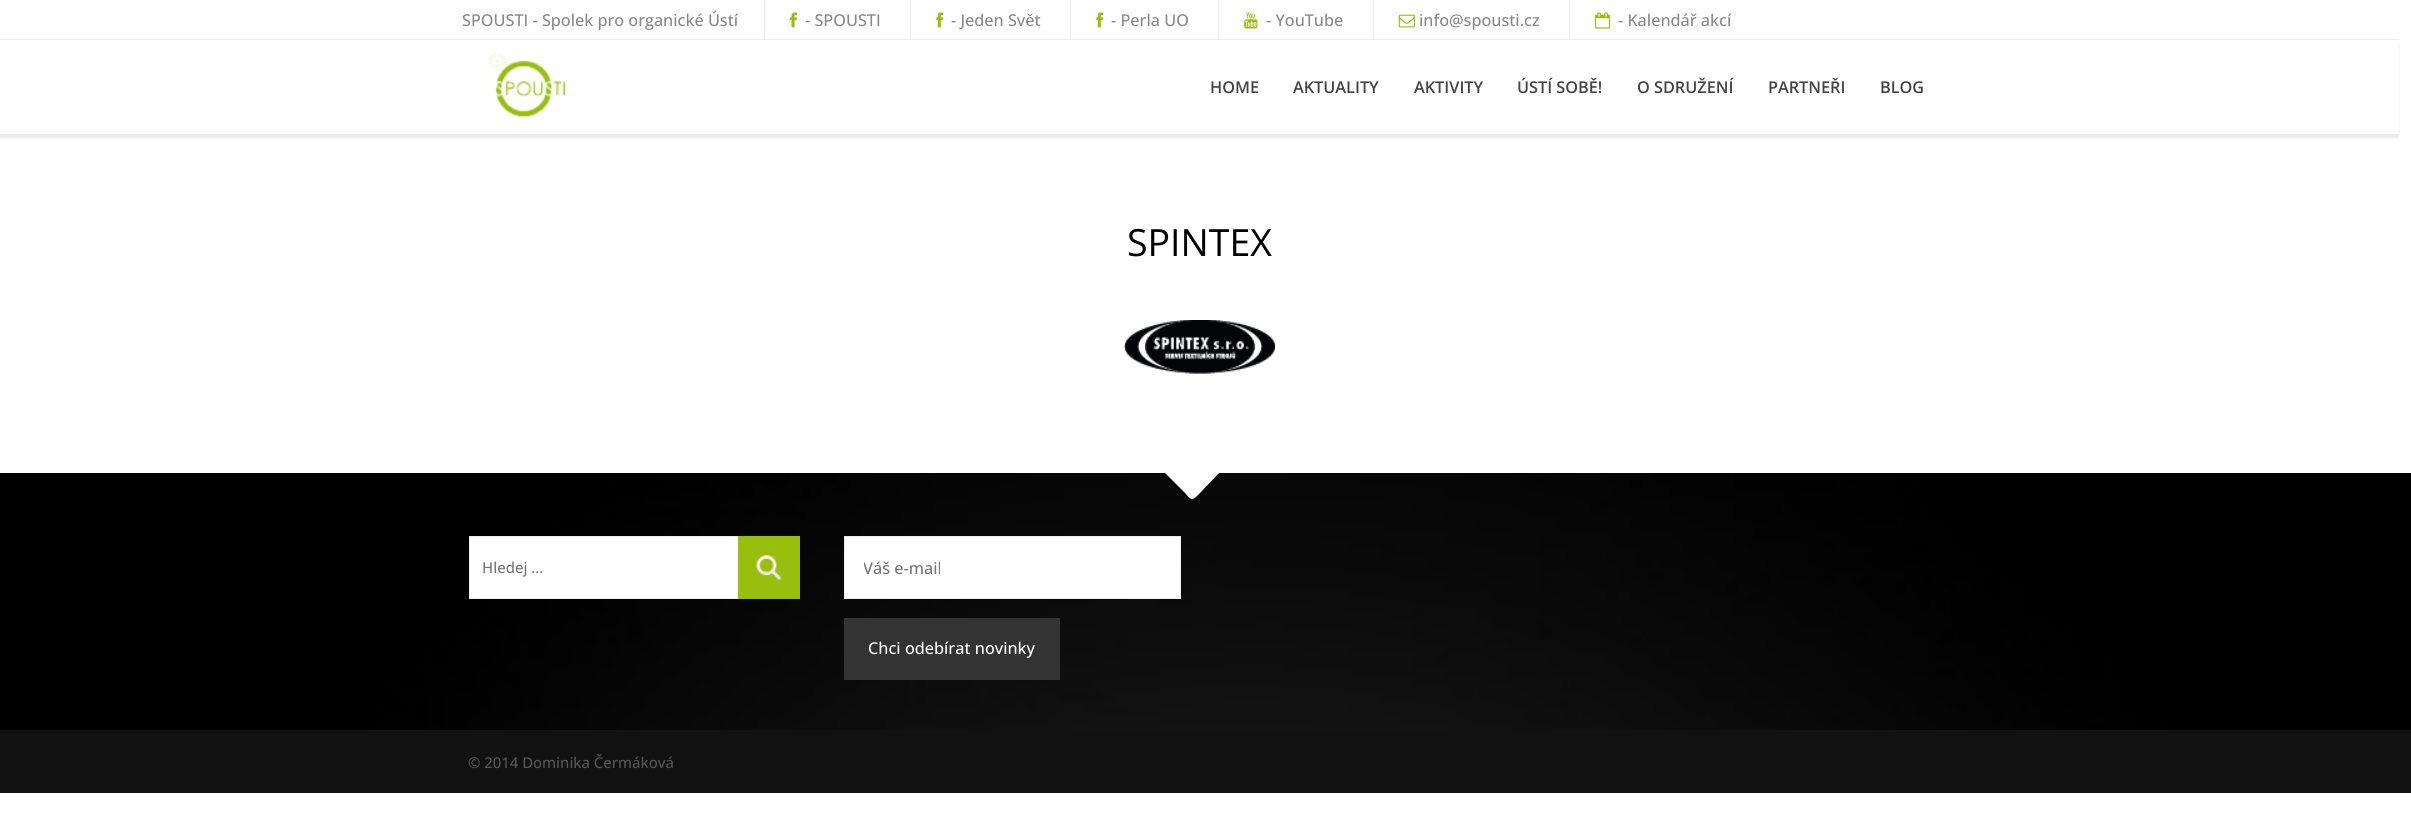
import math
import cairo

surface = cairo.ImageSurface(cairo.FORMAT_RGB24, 2411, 826)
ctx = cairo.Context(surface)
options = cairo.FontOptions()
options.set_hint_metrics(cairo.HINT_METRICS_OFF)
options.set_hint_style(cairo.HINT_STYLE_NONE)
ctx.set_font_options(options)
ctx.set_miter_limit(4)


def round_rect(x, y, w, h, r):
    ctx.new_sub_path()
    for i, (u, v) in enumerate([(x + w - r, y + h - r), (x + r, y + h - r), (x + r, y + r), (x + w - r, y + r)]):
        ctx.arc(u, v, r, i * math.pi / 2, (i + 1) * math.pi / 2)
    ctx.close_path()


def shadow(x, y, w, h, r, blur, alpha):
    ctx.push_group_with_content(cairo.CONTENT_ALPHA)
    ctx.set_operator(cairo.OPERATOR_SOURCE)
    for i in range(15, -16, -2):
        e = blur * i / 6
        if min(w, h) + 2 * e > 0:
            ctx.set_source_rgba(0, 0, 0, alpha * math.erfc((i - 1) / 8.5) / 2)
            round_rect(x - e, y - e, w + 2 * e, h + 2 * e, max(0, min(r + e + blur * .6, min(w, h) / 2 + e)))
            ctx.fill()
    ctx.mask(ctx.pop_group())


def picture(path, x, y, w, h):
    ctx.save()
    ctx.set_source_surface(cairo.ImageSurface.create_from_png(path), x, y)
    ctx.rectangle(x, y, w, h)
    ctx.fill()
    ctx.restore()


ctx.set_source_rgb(1, 1, 1)
ctx.paint()
ctx.set_source_rgb(0.933, 0.933, 0.933)
ctx.rectangle(0, 39, 2399, 1)
ctx.fill()
ctx.select_font_face("Open Sans Medium")
ctx.set_font_size(16.25)
ctx.set_source_rgb(0.533, 0.533, 0.533)
ctx.move_to(462, 26)
ctx.show_text("SPOUSTI - Spolek pro organické Ústí")
ctx.set_source_rgb(0.933, 0.933, 0.933)
ctx.rectangle(764, 0, 1, 40)
ctx.fill()
picture("img1.png", 790, 12, 7, 16)
ctx.set_source_rgb(0.533, 0.533, 0.533)
ctx.move_to(805, 26)
ctx.show_text("- SPOUSTI")
ctx.set_source_rgb(0.933, 0.933, 0.933)
ctx.rectangle(910, 0, 1, 40)
ctx.fill()
picture("img2.png", 936, 12, 8, 16)
ctx.set_source_rgb(0.533, 0.533, 0.533)
ctx.move_to(951, 26)
ctx.show_text("- Jeden Svět")
ctx.set_source_rgb(0.933, 0.933, 0.933)
ctx.rectangle(1070, 0, 1, 40)
ctx.fill()
picture("img2.png", 1096, 12, 8, 16)
ctx.set_source_rgb(0.533, 0.533, 0.533)
ctx.move_to(1111, 26)
ctx.show_text("- Perla UO")
ctx.set_source_rgb(0.933, 0.933, 0.933)
ctx.rectangle(1218, 0, 1, 40)
ctx.fill()
picture("img3.png", 1244, 12, 14, 17)
ctx.set_source_rgb(0.533, 0.533, 0.533)
ctx.move_to(1266, 26)
ctx.show_text("- YouTube")
ctx.set_source_rgb(0.933, 0.933, 0.933)
ctx.rectangle(1373, 0, 1, 40)
ctx.fill()
picture("img4.png", 1398, 14, 17, 14)
ctx.set_source_rgb(0.533, 0.533, 0.533)
ctx.move_to(1419, 26)
ctx.show_text("info@spousti.cz")
ctx.set_source_rgb(0.933, 0.933, 0.933)
ctx.rectangle(1569, 0, 1, 40)
ctx.fill()
picture("img5.png", 1595, 12, 16, 17)
ctx.set_source_rgb(0.533, 0.533, 0.533)
ctx.move_to(1618, 26)
ctx.show_text("- Kalendář akcí")
ctx.set_source_rgb(0.933, 0.933, 0.933)
ctx.rectangle(626, 40, 1, 40)
ctx.fill()
ctx.rectangle(463, 40, 1, 40)
ctx.fill()
picture("img6.png", 488, 52, 19, 16)
ctx.save()
ctx.set_fill_rule(cairo.FILL_RULE_EVEN_ODD)
ctx.new_path()
ctx.move_to(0, 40)
ctx.line_to(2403, 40)
ctx.line_to(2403, 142)
ctx.line_to(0, 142)
ctx.close_path()
ctx.move_to(-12, 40)
ctx.line_to(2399, 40)
ctx.line_to(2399, 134)
ctx.line_to(-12, 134)
ctx.close_path()
ctx.clip()
ctx.set_source_rgb(0.196, 0.196, 0.196)
shadow(-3, 44, 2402, 94, 0, 1, 0.1)
ctx.restore()
ctx.set_source_rgba(1, 1, 1, 0.94)
ctx.rectangle(0, 40, 2399, 94)
ctx.fill()
picture("img7.png", 495, 60, 71, 58)
ctx.select_font_face("Open Sans SemiBold")
ctx.set_source_rgb(0.267, 0.267, 0.267)
ctx.move_to(1210, 93)
ctx.show_text("HOME")
ctx.move_to(1293, 93)
ctx.show_text("AKTUALITY")
ctx.move_to(1414, 93)
ctx.show_text("AKTIVITY")
ctx.move_to(1517, 93)
ctx.show_text("ÚSTÍ SOBĚ!")
ctx.move_to(1637, 93)
ctx.show_text("O SDRUŽENÍ")
ctx.move_to(1768, 93)
ctx.show_text("PARTNEŘI")
ctx.move_to(1880, 93)
ctx.show_text("BLOG")
ctx.select_font_face("Open Sans")
ctx.set_font_size(37.5)
ctx.set_source_rgb(0, 0, 0)
ctx.move_to(1127, 256)
ctx.show_text("SPINTEX")
picture("img8.png", 1123, 320, 152, 54)
picture("img9.png", 0, 473, 2411, 257)
ctx.set_source_rgb(1, 1, 1)
ctx.new_path()
ctx.move_to(1223, 464)
ctx.curve_to(1227, 468, 1221, 472, 1218, 474)
ctx.line_to(1200, 493)
ctx.curve_to(1192, 501, 1192, 501, 1185, 493)
ctx.line_to(1161, 469)
ctx.curve_to(1159, 467, 1160, 463, 1164, 463)
ctx.line_to(1221, 463)
ctx.close_path()
ctx.fill()
ctx.rectangle(469.5, 536.5, 269, 62)
ctx.fill_preserve()
ctx.set_source_rgb(0.933, 0.933, 0.933)
ctx.set_line_width(1)
ctx.stroke()
ctx.select_font_face("Open Sans Medium")
ctx.set_font_size(15)
ctx.set_source_rgb(0.459, 0.459, 0.459)
ctx.move_to(482, 573)
ctx.show_text("Hledej …")
ctx.set_source_rgb(0.596, 0.749, 0.055)
ctx.rectangle(738, 536, 62, 63)
ctx.fill()
picture("img10.png", 756, 555, 26, 25)
ctx.set_source_rgb(1, 1, 1)
ctx.rectangle(844.5, 536.5, 336, 62)
ctx.fill_preserve()
ctx.set_source_rgb(0.933, 0.933, 0.933)
ctx.stroke()
ctx.save()
ctx.rectangle(864, 556, 297, 23)
ctx.clip()
ctx.set_font_size(16.25)
ctx.set_source_rgb(0.459, 0.459, 0.459)
ctx.move_to(863, 574)
ctx.show_text("Váš e-mail")
ctx.restore()
ctx.set_source_rgb(0.2, 0.2, 0.2)
ctx.rectangle(844, 618, 216, 62)
ctx.fill()
ctx.set_font_size(16.25)
ctx.set_source_rgb(1, 1, 1)
ctx.move_to(868, 654)
ctx.show_text("Chci odebírat novinky")
ctx.set_source_rgb(0.067, 0.067, 0.067)
ctx.rectangle(0, 730, 2411, 63)
ctx.fill()
ctx.set_font_size(14.9)
ctx.set_source_rgb(0.333, 0.333, 0.333)
ctx.move_to(468, 768)
ctx.show_text("© 2014 Dominika Čermáková")
surface.write_to_png("page.png")
